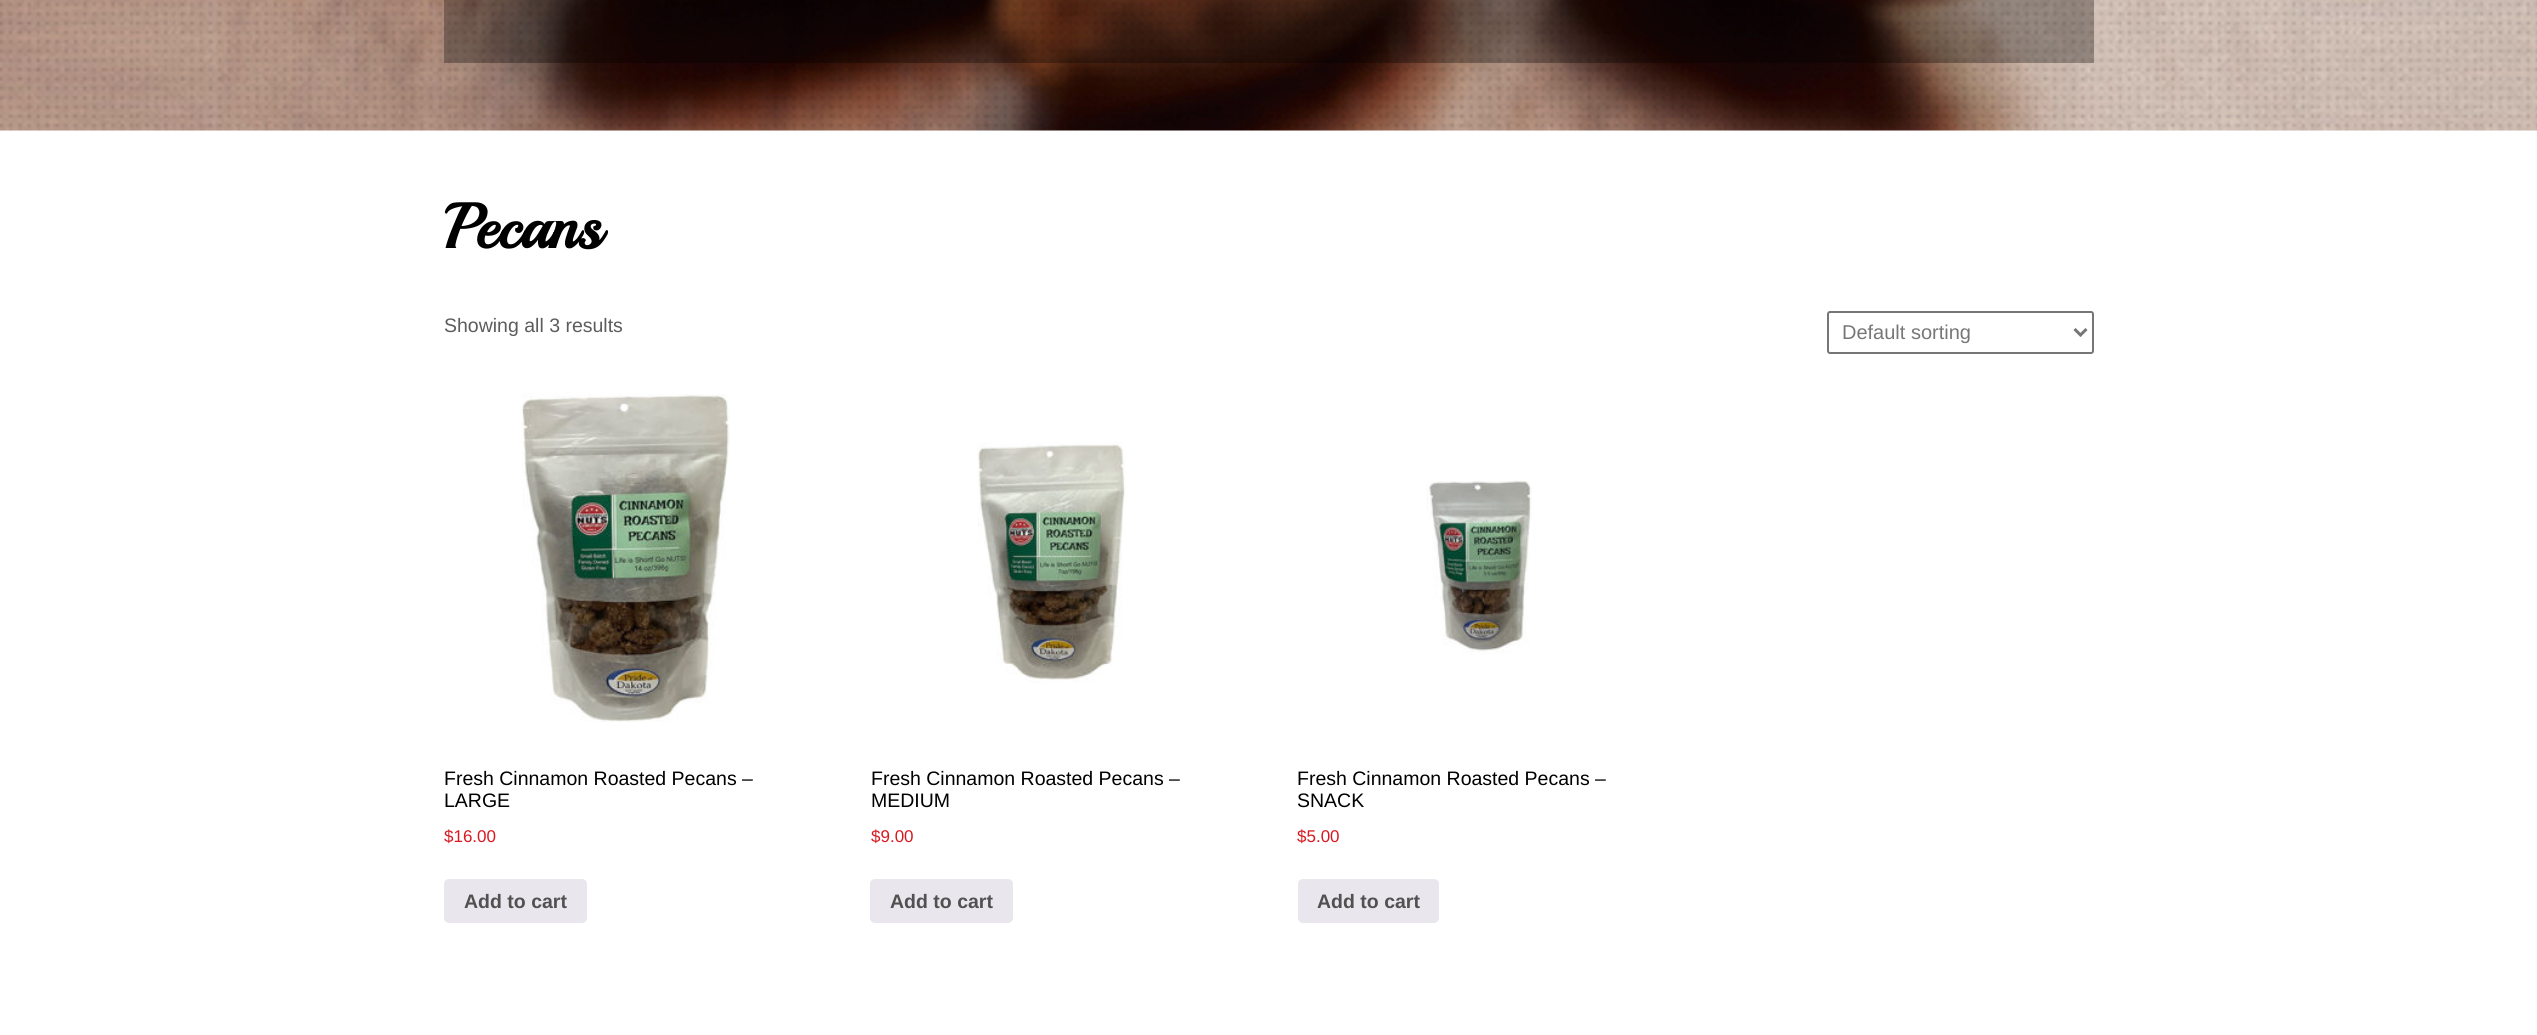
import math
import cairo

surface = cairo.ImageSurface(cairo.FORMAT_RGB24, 2537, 1035)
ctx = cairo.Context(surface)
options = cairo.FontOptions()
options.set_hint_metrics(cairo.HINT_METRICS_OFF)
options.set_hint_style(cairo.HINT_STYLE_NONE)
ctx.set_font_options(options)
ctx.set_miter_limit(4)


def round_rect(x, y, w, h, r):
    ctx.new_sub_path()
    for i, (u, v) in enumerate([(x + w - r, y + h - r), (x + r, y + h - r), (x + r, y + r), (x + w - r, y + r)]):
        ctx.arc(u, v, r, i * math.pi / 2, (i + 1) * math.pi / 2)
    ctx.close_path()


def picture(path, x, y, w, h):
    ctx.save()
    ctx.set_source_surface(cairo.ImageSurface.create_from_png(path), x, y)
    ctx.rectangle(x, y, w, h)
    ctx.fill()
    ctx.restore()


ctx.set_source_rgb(1, 1, 1)
ctx.paint()
picture("img1.png", 0, 0, 2537, 131)
ctx.set_source_rgba(0, 0, 0, 0.3)
ctx.rectangle(444, 0, 1650, 63)
ctx.fill()
ctx.select_font_face("Playball", cairo.FONT_SLANT_NORMAL, cairo.FONT_WEIGHT_BOLD)
ctx.set_font_size(63)
ctx.set_source_rgb(0, 0, 0)
ctx.move_to(444, 248)
ctx.show_text("Pecans")
ctx.select_font_face("Liberation Sans")
ctx.set_font_size(19.5)
ctx.set_source_rgb(0.361, 0.361, 0.361)
ctx.move_to(444, 332)
ctx.show_text("Showing all 3 results")
round_rect(1828, 312, 265, 41, 2)
ctx.set_source_rgb(0.463, 0.463, 0.463)
ctx.stroke()
ctx.new_path()
ctx.move_to(2074.5, 329)
ctx.line_to(2080.5, 335)
ctx.line_to(2086.5, 329)
ctx.set_source_rgb(0.467, 0.467, 0.467)
ctx.set_line_width(3)
ctx.stroke()
ctx.set_font_size(20)
ctx.move_to(1842, 339)
ctx.show_text("Default sorting")
picture("img2.png", 521, 393, 209, 329)
ctx.set_font_size(19.5)
ctx.set_source_rgb(0, 0, 0)
ctx.move_to(444, 785)
ctx.show_text("Fresh Cinnamon Roasted Pecans –")
ctx.move_to(444, 807)
ctx.show_text("LARGE")
ctx.set_font_size(17)
ctx.set_source_rgb(0.843, 0.098, 0.129)
ctx.move_to(444, 842)
ctx.show_text("$16.00")
ctx.set_source_rgb(0.914, 0.902, 0.929)
round_rect(444, 879, 143, 44, 5)
ctx.fill()
ctx.select_font_face("Liberation Sans", cairo.FONT_SLANT_NORMAL, cairo.FONT_WEIGHT_BOLD)
ctx.set_font_size(19.5)
ctx.set_source_rgb(0.318, 0.318, 0.318)
ctx.move_to(464, 908)
ctx.show_text("Add to cart")
picture("img3.png", 977, 442, 149, 241)
ctx.select_font_face("Liberation Sans")
ctx.set_source_rgb(0, 0, 0)
ctx.move_to(871, 785)
ctx.show_text("Fresh Cinnamon Roasted Pecans –")
ctx.move_to(871, 807)
ctx.show_text("MEDIUM")
ctx.set_font_size(17)
ctx.set_source_rgb(0.843, 0.098, 0.129)
ctx.move_to(871, 842)
ctx.show_text("$9.00")
ctx.set_source_rgb(0.914, 0.902, 0.929)
round_rect(870, 879, 143, 44, 5)
ctx.fill()
ctx.select_font_face("Liberation Sans", cairo.FONT_SLANT_NORMAL, cairo.FONT_WEIGHT_BOLD)
ctx.set_font_size(19.5)
ctx.set_source_rgb(0.318, 0.318, 0.318)
ctx.move_to(890, 908)
ctx.show_text("Add to cart")
picture("img4.png", 1426, 480, 106, 174)
ctx.select_font_face("Liberation Sans")
ctx.set_source_rgb(0, 0, 0)
ctx.move_to(1297, 785)
ctx.show_text("Fresh Cinnamon Roasted Pecans –")
ctx.move_to(1297, 807)
ctx.show_text("SNACK")
ctx.set_font_size(17)
ctx.set_source_rgb(0.843, 0.098, 0.129)
ctx.move_to(1297, 842)
ctx.show_text("$5.00")
ctx.set_source_rgb(0.914, 0.902, 0.929)
round_rect(1298, 879, 141, 44, 5)
ctx.fill()
ctx.select_font_face("Liberation Sans", cairo.FONT_SLANT_NORMAL, cairo.FONT_WEIGHT_BOLD)
ctx.set_font_size(19.5)
ctx.set_source_rgb(0.318, 0.318, 0.318)
ctx.move_to(1317, 908)
ctx.show_text("Add to cart")
surface.write_to_png("page.png")
